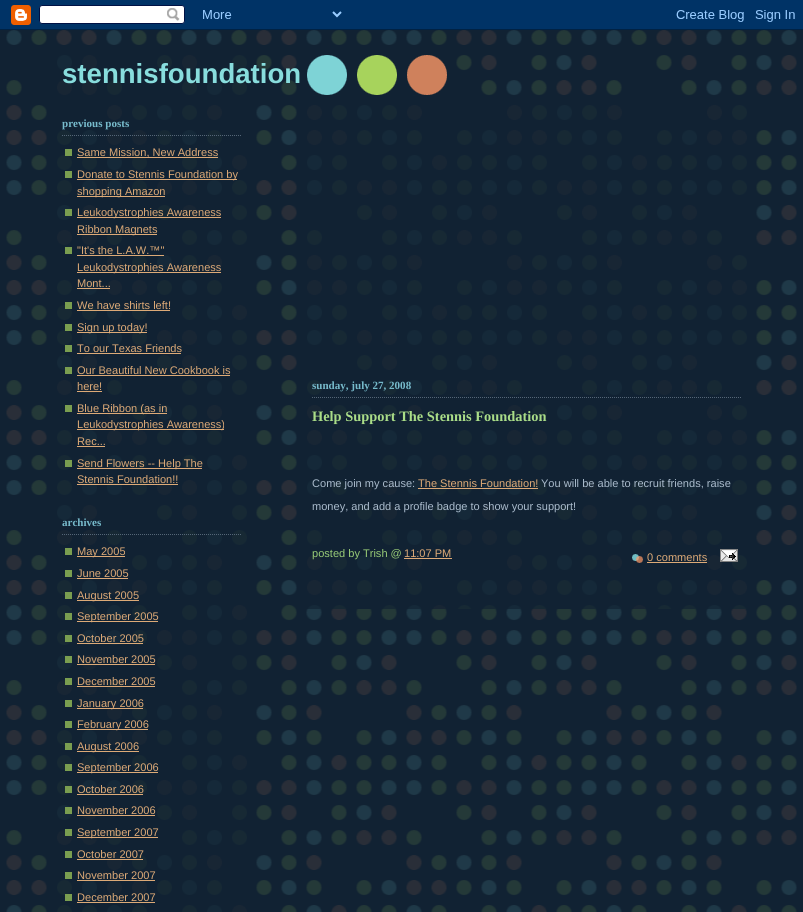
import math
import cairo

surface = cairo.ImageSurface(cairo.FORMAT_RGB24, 803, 912)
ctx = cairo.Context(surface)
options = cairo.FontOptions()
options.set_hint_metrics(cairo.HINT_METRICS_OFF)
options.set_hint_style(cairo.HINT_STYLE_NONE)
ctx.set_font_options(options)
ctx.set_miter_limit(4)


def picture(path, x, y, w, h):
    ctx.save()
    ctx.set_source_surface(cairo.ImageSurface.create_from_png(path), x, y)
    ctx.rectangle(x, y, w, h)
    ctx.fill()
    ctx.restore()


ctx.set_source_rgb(0.067, 0.133, 0.2)
ctx.paint()
picture("img1.png", 6, 30, 791, 882)
picture("img2.png", 0, 0, 803, 30)
picture("img3.png", 306, 55, 141, 40)
picture("img4.png", 56, 55, 191, 857)
ctx.select_font_face("Liberation Sans", cairo.FONT_SLANT_NORMAL, cairo.FONT_WEIGHT_BOLD)
ctx.set_font_size(27.6)
ctx.set_source_rgb(0.533, 0.867, 0.867)
ctx.move_to(62, 83)
ctx.show_text("stennisfoundation")
ctx.new_path()
ctx.move_to(62, 135.5)
ctx.line_to(242, 135.5)
ctx.set_source_rgb(0.333, 0.4, 0.467)
ctx.set_line_width(1)
ctx.set_dash([1, 1])
ctx.stroke()
ctx.select_font_face("Liberation Serif", cairo.FONT_SLANT_NORMAL, cairo.FONT_WEIGHT_BOLD)
ctx.set_font_size(11.05)
ctx.set_source_rgb(0.467, 0.733, 0.8)
ctx.move_to(62, 127)
ctx.show_text("previous posts")
ctx.set_source_rgb(0.478, 0.62, 0.314)
ctx.rectangle(65, 149, 7, 7)
ctx.fill()
ctx.set_source_rgb(0.867, 0.667, 0.467)
ctx.rectangle(77, 157, 141, 1)
ctx.fill()
ctx.select_font_face("Liberation Sans")
ctx.move_to(77, 156)
ctx.show_text("Same Mission, New Address")
ctx.set_source_rgb(0.478, 0.62, 0.314)
ctx.rectangle(65, 171, 7, 7)
ctx.fill()
ctx.set_source_rgb(0.867, 0.667, 0.467)
ctx.rectangle(77, 179, 160, 1)
ctx.fill()
ctx.move_to(77, 178)
ctx.show_text("Donate to Stennis Foundation by")
ctx.rectangle(77, 196, 88, 1)
ctx.fill()
ctx.move_to(77, 195)
ctx.show_text("shopping Amazon")
ctx.set_source_rgb(0.478, 0.62, 0.314)
ctx.rectangle(65, 209, 7, 7)
ctx.fill()
ctx.set_source_rgb(0.867, 0.667, 0.467)
ctx.rectangle(77, 217, 144, 1)
ctx.fill()
ctx.move_to(77, 216)
ctx.show_text("Leukodystrophies Awareness")
ctx.rectangle(77, 234, 80, 1)
ctx.fill()
ctx.move_to(77, 233)
ctx.show_text("Ribbon Magnets")
ctx.set_source_rgb(0.478, 0.62, 0.314)
ctx.rectangle(65, 247, 7, 7)
ctx.fill()
ctx.set_source_rgb(0.867, 0.667, 0.467)
ctx.move_to(77, 254)
ctx.show_text("\"It's the L.A.W.™\"")
ctx.rectangle(77, 255, 87, 1)
ctx.fill()
ctx.rectangle(77, 272, 144, 1)
ctx.fill()
ctx.move_to(77, 271)
ctx.show_text("Leukodystrophies Awareness")
ctx.move_to(77, 287)
ctx.show_text("Mont...")
ctx.rectangle(77, 288, 33, 1)
ctx.fill()
ctx.set_source_rgb(0.478, 0.62, 0.314)
ctx.rectangle(65, 302, 7, 7)
ctx.fill()
ctx.set_source_rgb(0.867, 0.667, 0.467)
ctx.move_to(77, 309)
ctx.show_text("We have shirts left!")
ctx.rectangle(77, 310, 93, 1)
ctx.fill()
ctx.set_source_rgb(0.478, 0.62, 0.314)
ctx.rectangle(65, 324, 7, 7)
ctx.fill()
ctx.set_source_rgb(0.867, 0.667, 0.467)
ctx.rectangle(77, 332, 70, 1)
ctx.fill()
ctx.move_to(77, 331)
ctx.show_text("Sign up today!")
ctx.set_source_rgb(0.478, 0.62, 0.314)
ctx.rectangle(65, 345, 7, 7)
ctx.fill()
ctx.set_source_rgb(0.867, 0.667, 0.467)
ctx.move_to(77, 352)
ctx.show_text("To our Texas Friends")
ctx.rectangle(77, 353, 104, 1)
ctx.fill()
ctx.set_source_rgb(0.478, 0.62, 0.314)
ctx.rectangle(65, 367, 7, 7)
ctx.fill()
ctx.set_source_rgb(0.867, 0.667, 0.467)
ctx.move_to(77, 374)
ctx.show_text("Our Beautiful New Cookbook is")
ctx.rectangle(77, 375, 153, 1)
ctx.fill()
ctx.move_to(77, 390)
ctx.show_text("here!")
ctx.rectangle(77, 391, 25, 1)
ctx.fill()
ctx.set_source_rgb(0.478, 0.62, 0.314)
ctx.rectangle(65, 405, 7, 7)
ctx.fill()
ctx.set_source_rgb(0.867, 0.667, 0.467)
ctx.rectangle(77, 413, 90, 1)
ctx.fill()
ctx.move_to(77, 412)
ctx.show_text("Blue Ribbon (as in")
ctx.rectangle(77, 429, 147, 1)
ctx.fill()
ctx.move_to(77, 428)
ctx.show_text("Leukodystrophies Awareness)")
ctx.move_to(77, 445)
ctx.show_text("Rec...")
ctx.rectangle(77, 446, 28, 1)
ctx.fill()
ctx.set_source_rgb(0.478, 0.62, 0.314)
ctx.rectangle(65, 460, 7, 7)
ctx.fill()
ctx.set_source_rgb(0.867, 0.667, 0.467)
ctx.rectangle(77, 468, 125, 1)
ctx.fill()
ctx.move_to(77, 467)
ctx.show_text("Send Flowers -- Help The")
ctx.move_to(77, 483)
ctx.show_text("Stennis Foundation!!")
ctx.rectangle(77, 484, 101, 1)
ctx.fill()
ctx.new_path()
ctx.move_to(62, 534.5)
ctx.line_to(242, 534.5)
ctx.set_source_rgb(0.333, 0.4, 0.467)
ctx.stroke()
ctx.select_font_face("Liberation Serif", cairo.FONT_SLANT_NORMAL, cairo.FONT_WEIGHT_BOLD)
ctx.set_source_rgb(0.467, 0.733, 0.8)
ctx.move_to(62, 526)
ctx.show_text("archives")
ctx.set_source_rgb(0.478, 0.62, 0.314)
ctx.rectangle(65, 548, 7, 7)
ctx.fill()
ctx.set_source_rgb(0.867, 0.667, 0.467)
ctx.rectangle(77, 556, 48, 1)
ctx.fill()
ctx.select_font_face("Liberation Sans")
ctx.move_to(77, 555)
ctx.show_text("May 2005")
ctx.set_source_rgb(0.478, 0.62, 0.314)
ctx.rectangle(65, 570, 7, 7)
ctx.fill()
ctx.set_source_rgb(0.867, 0.667, 0.467)
ctx.move_to(77, 577)
ctx.show_text("June 2005")
ctx.rectangle(77, 578, 51, 1)
ctx.fill()
ctx.set_source_rgb(0.478, 0.62, 0.314)
ctx.rectangle(65, 592, 7, 7)
ctx.fill()
ctx.set_source_rgb(0.867, 0.667, 0.467)
ctx.rectangle(77, 600, 62, 1)
ctx.fill()
ctx.move_to(77, 599)
ctx.show_text("August 2005")
ctx.set_source_rgb(0.478, 0.62, 0.314)
ctx.rectangle(65, 613, 7, 7)
ctx.fill()
ctx.set_source_rgb(0.867, 0.667, 0.467)
ctx.rectangle(77, 621, 81, 1)
ctx.fill()
ctx.move_to(77, 620)
ctx.show_text("September 2005")
ctx.set_source_rgb(0.478, 0.62, 0.314)
ctx.rectangle(65, 635, 7, 7)
ctx.fill()
ctx.set_source_rgb(0.867, 0.667, 0.467)
ctx.move_to(77, 642)
ctx.show_text("October 2005")
ctx.rectangle(77, 643, 66, 1)
ctx.fill()
ctx.set_source_rgb(0.478, 0.62, 0.314)
ctx.rectangle(65, 656, 7, 7)
ctx.fill()
ctx.set_source_rgb(0.867, 0.667, 0.467)
ctx.move_to(77, 663)
ctx.show_text("November 2005")
ctx.rectangle(77, 664, 78, 1)
ctx.fill()
ctx.set_source_rgb(0.478, 0.62, 0.314)
ctx.rectangle(65, 678, 7, 7)
ctx.fill()
ctx.set_source_rgb(0.867, 0.667, 0.467)
ctx.move_to(77, 685)
ctx.show_text("December 2005")
ctx.rectangle(77, 686, 78, 1)
ctx.fill()
ctx.set_source_rgb(0.478, 0.62, 0.314)
ctx.rectangle(65, 700, 7, 7)
ctx.fill()
ctx.set_source_rgb(0.867, 0.667, 0.467)
ctx.rectangle(77, 708, 66, 1)
ctx.fill()
ctx.move_to(77, 707)
ctx.show_text("January 2006")
ctx.set_source_rgb(0.478, 0.62, 0.314)
ctx.rectangle(65, 721, 7, 7)
ctx.fill()
ctx.set_source_rgb(0.867, 0.667, 0.467)
ctx.rectangle(77, 729, 71, 1)
ctx.fill()
ctx.move_to(77, 728)
ctx.show_text("February 2006")
ctx.set_source_rgb(0.478, 0.62, 0.314)
ctx.rectangle(65, 743, 7, 7)
ctx.fill()
ctx.set_source_rgb(0.867, 0.667, 0.467)
ctx.rectangle(77, 751, 62, 1)
ctx.fill()
ctx.move_to(77, 750)
ctx.show_text("August 2006")
ctx.set_source_rgb(0.478, 0.62, 0.314)
ctx.rectangle(65, 764, 7, 7)
ctx.fill()
ctx.set_source_rgb(0.867, 0.667, 0.467)
ctx.rectangle(77, 772, 81, 1)
ctx.fill()
ctx.move_to(77, 771)
ctx.show_text("September 2006")
ctx.set_source_rgb(0.478, 0.62, 0.314)
ctx.rectangle(65, 786, 7, 7)
ctx.fill()
ctx.set_source_rgb(0.867, 0.667, 0.467)
ctx.move_to(77, 793)
ctx.show_text("October 2006")
ctx.rectangle(77, 794, 66, 1)
ctx.fill()
ctx.set_source_rgb(0.478, 0.62, 0.314)
ctx.rectangle(65, 807, 7, 7)
ctx.fill()
ctx.set_source_rgb(0.867, 0.667, 0.467)
ctx.move_to(77, 814)
ctx.show_text("November 2006")
ctx.rectangle(77, 815, 78, 1)
ctx.fill()
ctx.set_source_rgb(0.478, 0.62, 0.314)
ctx.rectangle(65, 829, 7, 7)
ctx.fill()
ctx.set_source_rgb(0.867, 0.667, 0.467)
ctx.rectangle(77, 837, 81, 1)
ctx.fill()
ctx.move_to(77, 836)
ctx.show_text("September 2007")
ctx.set_source_rgb(0.478, 0.62, 0.314)
ctx.rectangle(65, 851, 7, 7)
ctx.fill()
ctx.set_source_rgb(0.867, 0.667, 0.467)
ctx.move_to(77, 858)
ctx.show_text("October 2007")
ctx.rectangle(77, 859, 66, 1)
ctx.fill()
ctx.set_source_rgb(0.478, 0.62, 0.314)
ctx.rectangle(65, 872, 7, 7)
ctx.fill()
ctx.set_source_rgb(0.867, 0.667, 0.467)
ctx.move_to(77, 879)
ctx.show_text("November 2007")
ctx.rectangle(77, 880, 78, 1)
ctx.fill()
ctx.set_source_rgb(0.478, 0.62, 0.314)
ctx.rectangle(65, 894, 7, 7)
ctx.fill()
ctx.set_source_rgb(0.867, 0.667, 0.467)
ctx.move_to(77, 901)
ctx.show_text("December 2007")
ctx.rectangle(77, 902, 78, 1)
ctx.fill()
picture("img5.png", 306, 105, 441, 504)
ctx.new_path()
ctx.move_to(312, 397.5)
ctx.line_to(742, 397.5)
ctx.set_source_rgb(0.333, 0.4, 0.467)
ctx.stroke()
ctx.select_font_face("Liberation Serif", cairo.FONT_SLANT_NORMAL, cairo.FONT_WEIGHT_BOLD)
ctx.set_source_rgb(0.467, 0.733, 0.8)
ctx.move_to(312, 389)
ctx.show_text("sunday, july 27, 2008")
ctx.set_font_size(14.4)
ctx.set_source_rgb(0.667, 0.867, 0.533)
ctx.move_to(312, 421)
ctx.show_text("Help Support The Stennis Foundation")
ctx.select_font_face("Liberation Sans")
ctx.set_font_size(11.05)
ctx.set_source_rgb(0.667, 0.733, 0.8)
ctx.move_to(312, 487)
ctx.show_text("Come join my cause:")
ctx.set_source_rgb(0.867, 0.667, 0.467)
ctx.move_to(418, 487)
ctx.show_text("The Stennis Foundation!")
ctx.rectangle(418, 488, 120, 1)
ctx.fill()
ctx.set_source_rgb(0.667, 0.733, 0.8)
ctx.move_to(541, 487)
ctx.show_text("You will be able to recruit friends, raise")
ctx.move_to(312, 510)
ctx.show_text("money, and add a profile badge to show your support!")
ctx.set_source_rgb(0.6, 0.8, 0.467)
ctx.move_to(312, 557)
ctx.show_text("posted by Trish @")
ctx.set_source_rgb(0.867, 0.667, 0.467)
ctx.move_to(404, 557)
ctx.show_text("11:07 PM")
ctx.rectangle(404, 558, 48, 1)
ctx.fill()
picture("img6.png", 632, 554, 11, 9)
ctx.move_to(647, 561)
ctx.show_text("0 comments")
ctx.rectangle(647, 562, 60, 1)
ctx.fill()
picture("img7.png", 720, 549, 18, 13)
surface.write_to_png("page.png")
